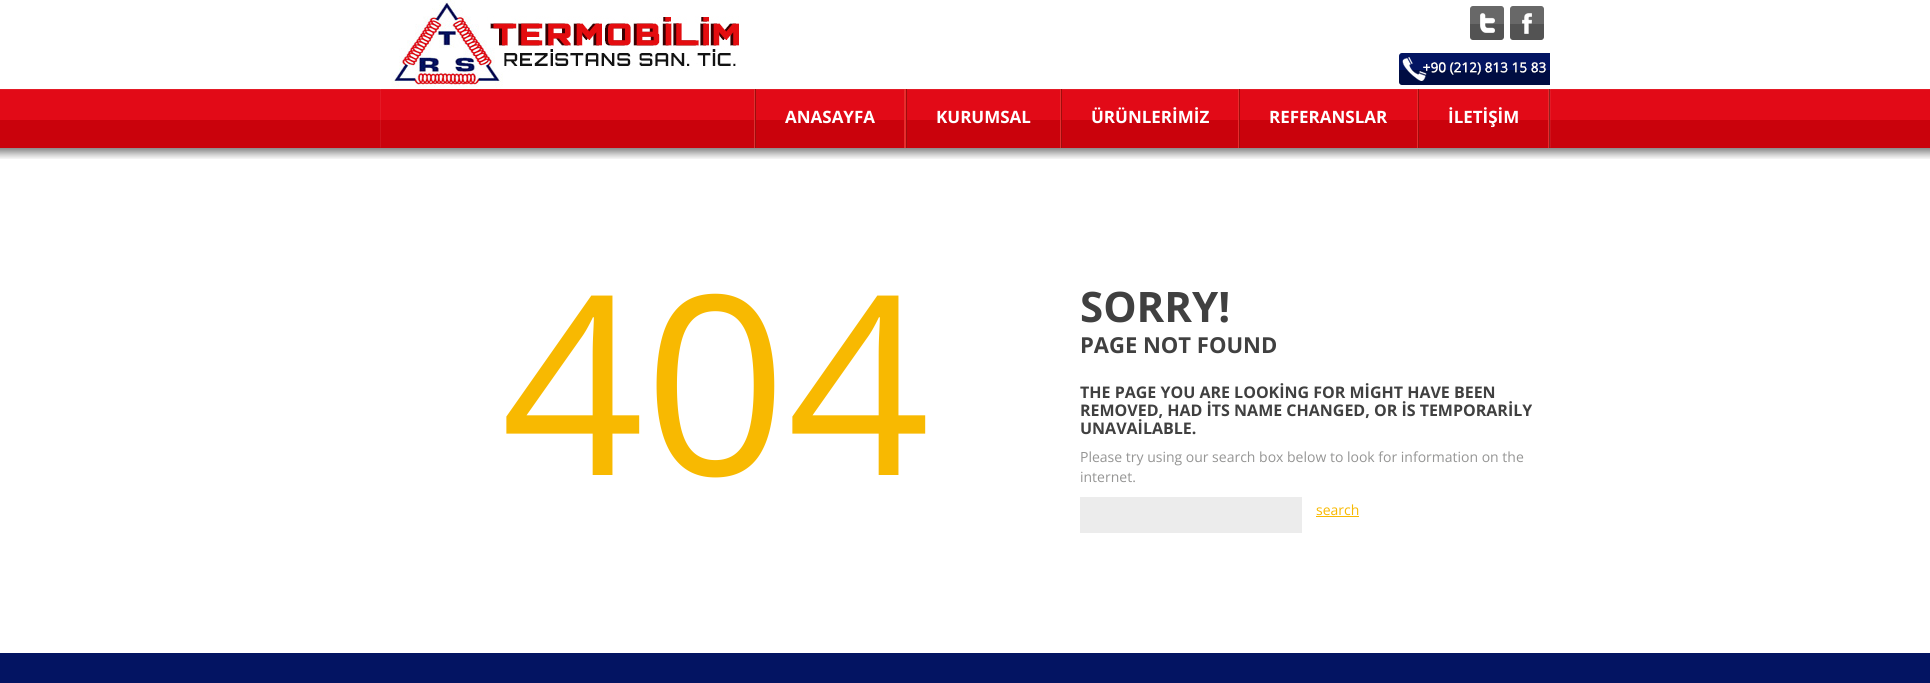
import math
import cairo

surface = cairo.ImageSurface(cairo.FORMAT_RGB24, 1930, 683)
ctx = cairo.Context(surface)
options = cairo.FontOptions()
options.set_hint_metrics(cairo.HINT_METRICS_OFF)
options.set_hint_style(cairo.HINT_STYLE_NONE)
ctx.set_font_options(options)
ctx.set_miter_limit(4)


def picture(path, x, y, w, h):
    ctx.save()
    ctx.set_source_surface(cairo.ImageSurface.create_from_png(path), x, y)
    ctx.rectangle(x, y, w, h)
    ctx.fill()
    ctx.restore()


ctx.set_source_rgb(1, 1, 1)
ctx.paint()
picture("img1.png", 391, 0, 348, 88)
picture("img2.png", 1470, 6, 34, 34)
picture("img3.png", 1510, 6, 34, 34)
picture("img4.png", 1399, 53, 151, 32)
picture("img5.png", 380, 89, 1168, 59)
picture("img6.png", 0, 89, 380, 59)
ctx.set_source_rgb(0.557, 0.133, 0.133)
ctx.rectangle(1549, 89, 1, 59)
ctx.fill()
ctx.set_source_rgb(0.906, 0.176, 0.176)
ctx.rectangle(904, 89, 2, 59)
ctx.fill()
ctx.set_source_rgb(0.859, 0.2, 0.2)
ctx.rectangle(754, 89, 1, 59)
ctx.fill()
ctx.set_source_rgb(0.62, 0.051, 0.051)
ctx.rectangle(755, 89, 1, 59)
ctx.fill()
ctx.select_font_face("Open Sans", cairo.FONT_SLANT_NORMAL, cairo.FONT_WEIGHT_BOLD)
ctx.set_font_size(17)
ctx.set_source_rgb(1, 1, 1)
ctx.move_to(785, 123)
ctx.show_text("ANASAYFA")
ctx.set_source_rgb(0.906, 0.176, 0.176)
ctx.rectangle(1060, 89, 1, 59)
ctx.fill()
ctx.set_source_rgb(0.62, 0.051, 0.051)
ctx.rectangle(906, 89, 1, 59)
ctx.fill()
ctx.set_source_rgb(1, 1, 1)
ctx.move_to(936, 123)
ctx.show_text("KURUMSAL")
ctx.set_source_rgb(0.906, 0.176, 0.176)
ctx.rectangle(1238, 89, 1, 59)
ctx.fill()
ctx.set_source_rgb(0.62, 0.051, 0.051)
ctx.rectangle(1061, 89, 1, 59)
ctx.fill()
ctx.set_source_rgb(1, 1, 1)
ctx.move_to(1091, 123)
ctx.show_text("ÜRÜNLERİMİZ")
ctx.set_source_rgb(0.906, 0.176, 0.176)
ctx.rectangle(1417, 89, 1, 59)
ctx.fill()
ctx.set_source_rgb(0.62, 0.051, 0.051)
ctx.rectangle(1239, 89, 1, 59)
ctx.fill()
ctx.set_source_rgb(1, 1, 1)
ctx.move_to(1269, 123)
ctx.show_text("REFERANSLAR")
ctx.set_source_rgb(0.906, 0.176, 0.176)
ctx.rectangle(1548, 89, 1, 59)
ctx.fill()
ctx.set_source_rgb(0.62, 0.051, 0.051)
ctx.rectangle(1418, 89, 1, 59)
ctx.fill()
ctx.set_source_rgb(1, 1, 1)
ctx.move_to(1448, 123)
ctx.show_text("İLETİŞİM")
picture("img7.png", 1550, 89, 380, 59)
picture("img8.png", 380, 148, 1170, 11)
picture("img9.png", 0, 148, 380, 11)
picture("img9.png", 1550, 148, 380, 11)
ctx.select_font_face("Open Sans")
ctx.set_font_size(250)
ctx.set_source_rgb(0.969, 0.725, 0.004)
ctx.move_to(501, 475)
ctx.show_text("404")
ctx.select_font_face("Open Sans", cairo.FONT_SLANT_NORMAL, cairo.FONT_WEIGHT_BOLD)
ctx.set_font_size(42)
ctx.set_source_rgb(0.251, 0.251, 0.251)
ctx.move_to(1080, 322)
ctx.show_text("SORRY!")
ctx.set_font_size(22)
ctx.move_to(1080, 353)
ctx.show_text("PAGE NOT FOUND")
ctx.set_font_size(16)
ctx.move_to(1080, 398)
ctx.show_text("THE PAGE YOU ARE LOOKİNG FOR MİGHT HAVE BEEN")
ctx.move_to(1080, 416)
ctx.show_text("REMOVED, HAD İTS NAME CHANGED, OR İS TEMPORARİLY")
ctx.move_to(1080, 434)
ctx.show_text("UNAVAİLABLE.")
ctx.select_font_face("Open Sans")
ctx.set_font_size(14)
ctx.set_source_rgb(0.584, 0.584, 0.58)
ctx.move_to(1080, 462)
ctx.show_text("Please try using our search box below to look for information on the")
ctx.move_to(1080, 482)
ctx.show_text("internet.")
ctx.set_source_rgb(0.925, 0.925, 0.925)
ctx.rectangle(1080, 497, 222, 36)
ctx.fill()
ctx.set_source_rgb(0.969, 0.725, 0.004)
ctx.move_to(1316, 515)
ctx.show_text("search")
ctx.rectangle(1316, 516, 43, 1)
ctx.fill()
ctx.set_source_rgb(0.012, 0.082, 0.384)
ctx.rectangle(0, 653, 1930, 30)
ctx.fill()
surface.write_to_png("page.png")
